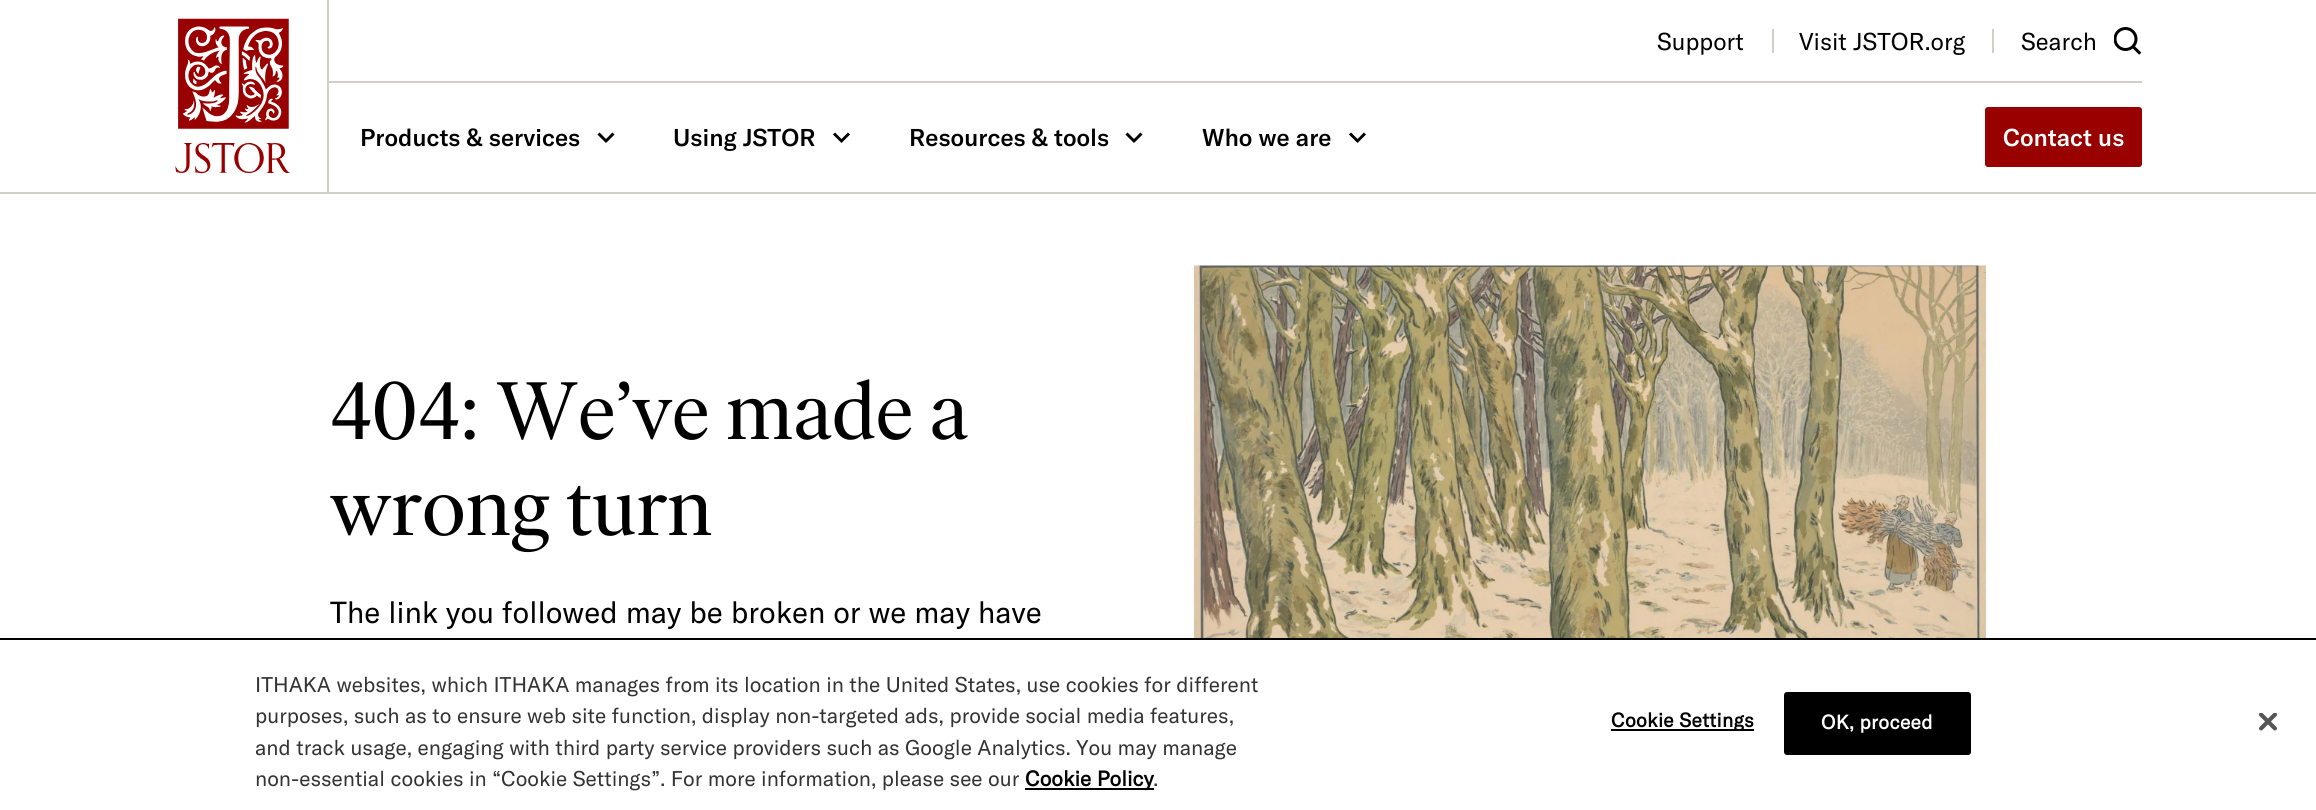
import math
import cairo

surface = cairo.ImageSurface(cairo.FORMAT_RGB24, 2316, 810)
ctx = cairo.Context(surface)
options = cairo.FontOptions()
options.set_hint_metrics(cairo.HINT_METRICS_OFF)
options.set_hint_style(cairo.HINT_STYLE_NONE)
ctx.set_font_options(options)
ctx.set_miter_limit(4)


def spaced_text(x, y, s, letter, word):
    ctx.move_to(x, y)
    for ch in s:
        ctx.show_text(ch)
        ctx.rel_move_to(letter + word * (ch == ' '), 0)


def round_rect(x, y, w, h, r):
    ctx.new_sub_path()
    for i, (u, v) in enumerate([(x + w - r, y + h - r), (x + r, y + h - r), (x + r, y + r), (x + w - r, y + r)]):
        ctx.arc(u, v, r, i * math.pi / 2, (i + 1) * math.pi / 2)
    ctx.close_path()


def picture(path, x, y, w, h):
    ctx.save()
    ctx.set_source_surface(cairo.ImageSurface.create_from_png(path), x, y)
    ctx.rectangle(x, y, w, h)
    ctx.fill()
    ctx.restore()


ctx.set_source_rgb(1, 1, 1)
ctx.paint()
ctx.set_source_rgb(0.82, 0.812, 0.78)
ctx.rectangle(0, 192, 2316, 2)
ctx.fill()
ctx.rectangle(327, 0, 2, 192)
ctx.fill()
picture("img1.png", 175, 18, 115, 156)
ctx.rectangle(329, 81, 1813, 2)
ctx.fill()
ctx.rectangle(1772, 29, 2, 24)
ctx.fill()
ctx.select_font_face("GT America")
ctx.set_font_size(24)
ctx.set_source_rgb(0, 0, 0)
ctx.move_to(1657, 50)
ctx.show_text("Support")
ctx.set_source_rgb(0.82, 0.812, 0.78)
ctx.rectangle(1992, 29, 2, 24)
ctx.fill()
ctx.set_source_rgb(0, 0, 0)
ctx.move_to(1799, 50)
ctx.show_text("Visit JSTOR.org")
picture("img2.png", 2114, 27, 28, 28)
ctx.move_to(2021, 50)
ctx.show_text("Search")
ctx.select_font_face("GT America Medium")
ctx.move_to(360, 146)
ctx.show_text("Products & services")
picture("img3.png", 597, 132, 18, 11)
ctx.move_to(673, 146)
ctx.show_text("Using JSTOR")
picture("img4.png", 833, 132, 17, 11)
ctx.move_to(909, 146)
ctx.show_text("Resources & tools")
picture("img3.png", 1125, 132, 18, 11)
ctx.move_to(1202, 146)
ctx.show_text("Who we are")
picture("img4.png", 1349, 132, 17, 11)
ctx.set_source_rgb(0.6, 0, 0)
round_rect(1985, 107, 157, 60, 3)
ctx.fill()
ctx.set_source_rgb(1, 1, 1)
ctx.move_to(2003, 146)
ctx.show_text("Contact us")
ctx.select_font_face("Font")
ctx.set_font_size(81)
ctx.set_source_rgb(0, 0, 0)
ctx.move_to(330, 439)
ctx.show_text("404: We’ve made a")
ctx.move_to(330, 535)
ctx.show_text("wrong turn")
ctx.select_font_face("GT America")
ctx.set_font_size(30)
ctx.move_to(330, 623)
ctx.show_text("The link you followed may be broken or we may have")
picture("img5.png", 1194, 265, 792, 373)
ctx.rectangle(0, 638, 2316, 2)
ctx.fill()
ctx.set_font_size(21)
ctx.set_source_rgb(0.2, 0.2, 0.2)
ctx.move_to(255, 692)
ctx.show_text("ITHAKA websites, which ITHAKA manages from its location in the United States, use cookies for different")
ctx.move_to(255, 723)
ctx.show_text("purposes, such as to ensure web site function, display non-targeted ads, provide social media features,")
ctx.move_to(255, 755)
ctx.show_text("and track usage, engaging with third party service providers such as Google Analytics. You may manage")
ctx.move_to(255, 786)
ctx.show_text("non-essential cookies in “Cookie Settings”. For more information, please see our")
ctx.set_source_rgb(0, 0, 0)
ctx.rectangle(1025, 788, 129, 2)
ctx.fill()
ctx.select_font_face("GT America", cairo.FONT_SLANT_NORMAL, cairo.FONT_WEIGHT_BOLD)
ctx.move_to(1025, 786)
ctx.show_text("Cookie Policy")
ctx.select_font_face("GT America")
ctx.set_source_rgb(0.2, 0.2, 0.2)
ctx.move_to(1153, 786)
ctx.show_text(".")
ctx.set_source_rgb(0, 0, 0)
ctx.rectangle(1611, 729, 143, 2)
ctx.fill()
ctx.select_font_face("GT America", cairo.FONT_SLANT_NORMAL, cairo.FONT_WEIGHT_BOLD)
ctx.set_font_size(19.5)
spaced_text(1611, 727, "Cookie Settings", 0.25, 0)
round_rect(1785, 693, 185, 61, 2)
ctx.fill_preserve()
ctx.stroke()
ctx.set_source_rgb(1, 1, 1)
spaced_text(1821, 729, "OK, proceed", 0.25, 0)
picture("img6.png", 2259, 713, 18, 18)
surface.write_to_png("page.png")
